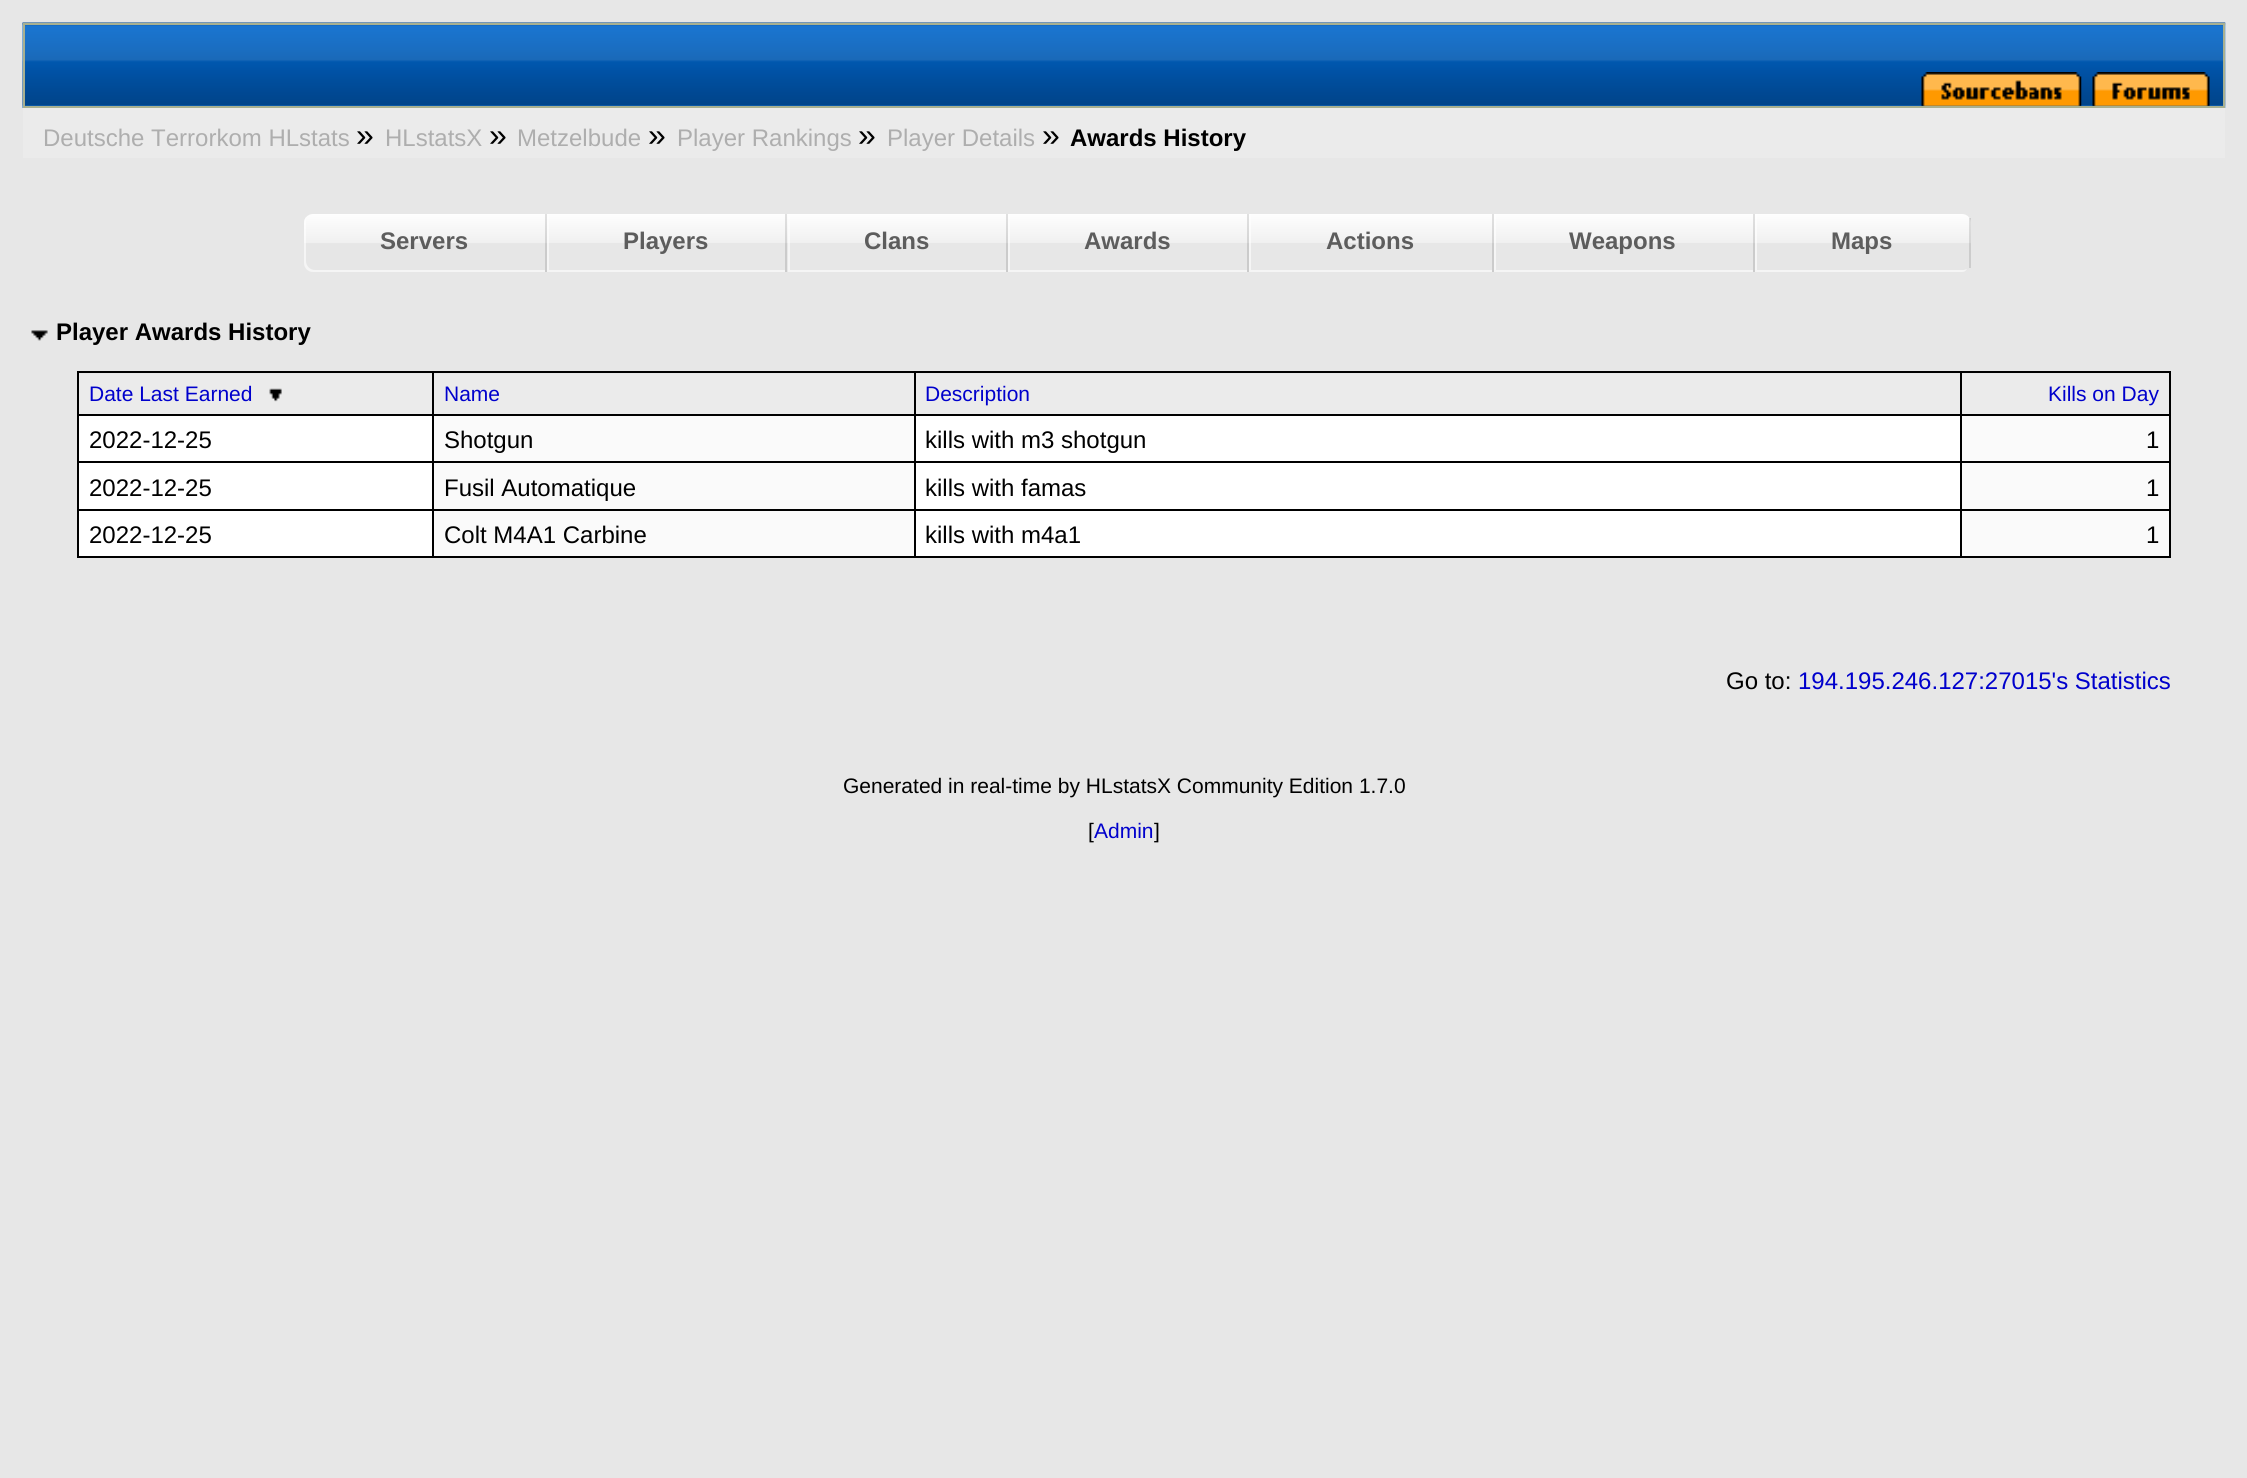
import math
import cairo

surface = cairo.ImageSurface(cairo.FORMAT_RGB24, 2247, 1478)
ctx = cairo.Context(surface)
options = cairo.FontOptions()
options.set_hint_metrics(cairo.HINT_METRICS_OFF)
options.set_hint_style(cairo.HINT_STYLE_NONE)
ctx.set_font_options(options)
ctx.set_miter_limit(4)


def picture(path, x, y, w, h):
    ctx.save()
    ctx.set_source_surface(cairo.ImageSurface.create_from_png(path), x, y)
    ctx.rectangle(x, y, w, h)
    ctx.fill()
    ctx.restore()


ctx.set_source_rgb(0.906, 0.906, 0.906)
ctx.paint()
picture("img1.png", 22, 22, 2204, 86)
ctx.rectangle(24, 24, 2200, 83)
ctx.set_source_rgb(0.659, 0.69, 0.565)
ctx.stroke()
picture("img2.png", 1921, 72, 161, 34)
picture("img3.png", 2092, 72, 118, 34)
ctx.set_source_rgb(0.918, 0.918, 0.918)
ctx.rectangle(23, 108, 2202, 50)
ctx.fill()
ctx.select_font_face("Liberation Sans")
ctx.set_font_size(24)
ctx.set_source_rgb(0.682, 0.682, 0.682)
ctx.move_to(43, 146)
ctx.show_text("Deutsche Terrorkom HLstats")
ctx.set_font_size(32)
ctx.set_source_rgb(0, 0, 0)
ctx.move_to(356, 146)
ctx.show_text("»")
ctx.set_font_size(24)
ctx.set_source_rgb(0.682, 0.682, 0.682)
ctx.move_to(385, 146)
ctx.show_text("HLstatsX")
ctx.set_font_size(32)
ctx.set_source_rgb(0, 0, 0)
ctx.move_to(489, 146)
ctx.show_text("»")
ctx.set_font_size(24)
ctx.set_source_rgb(0.682, 0.682, 0.682)
ctx.move_to(517, 146)
ctx.show_text("Metzelbude")
ctx.set_font_size(32)
ctx.set_source_rgb(0, 0, 0)
ctx.move_to(648, 146)
ctx.show_text("»")
ctx.set_font_size(24)
ctx.set_source_rgb(0.682, 0.682, 0.682)
ctx.move_to(677, 146)
ctx.show_text("Player Rankings")
ctx.set_font_size(32)
ctx.set_source_rgb(0, 0, 0)
ctx.move_to(858, 146)
ctx.show_text("»")
ctx.set_font_size(24)
ctx.set_source_rgb(0.682, 0.682, 0.682)
ctx.move_to(887, 146)
ctx.show_text("Player Details")
ctx.set_font_size(32)
ctx.set_source_rgb(0, 0, 0)
ctx.move_to(1042, 146)
ctx.show_text("»")
ctx.select_font_face("Liberation Sans", cairo.FONT_SLANT_NORMAL, cairo.FONT_WEIGHT_BOLD)
ctx.set_font_size(24)
ctx.move_to(1070, 146)
ctx.show_text("Awards History")
gradient = cairo.LinearGradient(424, 214, 424, 272)
gradient.add_color_stop_rgba(0, 0.996, 0.996, 0.996, 1)
gradient.add_color_stop_rgba(0.5, 0.941, 0.941, 0.941, 1)
gradient.add_color_stop_rgba(0.51, 0.902, 0.902, 0.902, 1)
ctx.set_source(gradient)
ctx.new_path()
ctx.move_to(313, 214)
ctx.line_to(547, 214)
ctx.line_to(547, 272)
ctx.line_to(313, 272)
ctx.curve_to(308, 272, 304, 268, 304, 263)
ctx.line_to(304, 223)
ctx.curve_to(304, 218, 308, 214, 313, 214)
ctx.close_path()
ctx.fill()
gradient = cairo.LinearGradient(424, 214, 424, 272)
gradient.add_color_stop_rgba(0, 0.882, 0.882, 0.882, 1)
gradient.add_color_stop_rgba(0.5, 0.831, 0.831, 0.831, 1)
gradient.add_color_stop_rgba(0.51, 0.796, 0.796, 0.796, 1)
ctx.set_source(gradient)
ctx.rectangle(545, 214, 2, 58)
ctx.fill()
ctx.set_source_rgba(1, 1, 1, 0.6)
ctx.new_path()
ctx.move_to(307, 216)
ctx.curve_to(306, 217, 306, 219, 306, 220)
ctx.line_to(306, 261)
ctx.curve_to(306, 266, 310, 270, 315, 270)
ctx.line_to(545, 270)
ctx.line_to(545, 272)
ctx.line_to(313, 272)
ctx.curve_to(308, 272, 304, 268, 304, 263)
ctx.line_to(304, 223)
ctx.curve_to(304, 220, 305, 218, 307, 216)
ctx.close_path()
ctx.fill()
ctx.set_source_rgb(0.365, 0.365, 0.365)
ctx.move_to(380, 249)
ctx.show_text("Servers")
gradient = cairo.LinearGradient(666, 214, 666, 272)
gradient.add_color_stop_rgba(0, 0.996, 0.996, 0.996, 1)
gradient.add_color_stop_rgba(0.5, 0.941, 0.941, 0.941, 1)
gradient.add_color_stop_rgba(0.51, 0.902, 0.902, 0.902, 1)
ctx.set_source(gradient)
ctx.rectangle(547, 214, 241, 29)
ctx.fill()
gradient = cairo.LinearGradient(666, 214, 666, 272)
gradient.add_color_stop_rgba(0, 0.882, 0.882, 0.882, 1)
gradient.add_color_stop_rgba(0.5, 0.831, 0.831, 0.831, 1)
gradient.add_color_stop_rgba(0.51, 0.796, 0.796, 0.796, 1)
ctx.set_source(gradient)
ctx.rectangle(785, 214, 2, 58)
ctx.fill()
ctx.save()
ctx.rectangle(547, 214, 238, 58)
ctx.clip()
ctx.set_source_rgba(1, 1, 1, 0.6)
ctx.new_path()
ctx.move_to(324, 290)
ctx.line_to(324, 214)
ctx.line_to(549, 214)
ctx.line_to(549, 270)
ctx.line_to(788, 270)
ctx.line_to(788, 214)
ctx.line_to(1008, 214)
ctx.line_to(1008, 290)
ctx.close_path()
ctx.fill()
ctx.restore()
ctx.set_source_rgb(0.365, 0.365, 0.365)
ctx.move_to(623, 249)
ctx.show_text("Players")
gradient = cairo.LinearGradient(897, 214, 897, 272)
gradient.add_color_stop_rgba(0, 0.996, 0.996, 0.996, 1)
gradient.add_color_stop_rgba(0.5, 0.941, 0.941, 0.941, 1)
gradient.add_color_stop_rgba(0.51, 0.902, 0.902, 0.902, 1)
ctx.set_source(gradient)
ctx.rectangle(788, 214, 218, 29)
ctx.fill()
gradient = cairo.LinearGradient(897, 214, 897, 272)
gradient.add_color_stop_rgba(0, 0.882, 0.882, 0.882, 1)
gradient.add_color_stop_rgba(0.5, 0.831, 0.831, 0.831, 1)
gradient.add_color_stop_rgba(0.51, 0.796, 0.796, 0.796, 1)
ctx.set_source(gradient)
ctx.rectangle(1006, 214, 2, 58)
ctx.fill()
ctx.save()
ctx.rectangle(788, 214, 218, 58)
ctx.clip()
ctx.set_source_rgba(1, 1, 1, 0.6)
ctx.new_path()
ctx.move_to(565, 290)
ctx.line_to(565, 214)
ctx.line_to(790, 214)
ctx.line_to(790, 270)
ctx.line_to(1008, 270)
ctx.line_to(1008, 214)
ctx.line_to(1228, 214)
ctx.line_to(1228, 290)
ctx.close_path()
ctx.fill()
ctx.restore()
ctx.set_source_rgb(0.365, 0.365, 0.365)
ctx.move_to(864, 249)
ctx.show_text("Clans")
gradient = cairo.LinearGradient(1127, 214, 1127, 272)
gradient.add_color_stop_rgba(0, 0.996, 0.996, 0.996, 1)
gradient.add_color_stop_rgba(0.5, 0.941, 0.941, 0.941, 1)
gradient.add_color_stop_rgba(0.51, 0.902, 0.902, 0.902, 1)
ctx.set_source(gradient)
ctx.rectangle(1008, 214, 239, 29)
ctx.fill()
gradient = cairo.LinearGradient(1127, 214, 1127, 272)
gradient.add_color_stop_rgba(0, 0.882, 0.882, 0.882, 1)
gradient.add_color_stop_rgba(0.5, 0.831, 0.831, 0.831, 1)
gradient.add_color_stop_rgba(0.51, 0.796, 0.796, 0.796, 1)
ctx.set_source(gradient)
ctx.rectangle(1247, 214, 2, 58)
ctx.fill()
ctx.save()
ctx.rectangle(1008, 214, 239, 58)
ctx.clip()
ctx.set_source_rgba(1, 1, 1, 0.6)
ctx.new_path()
ctx.move_to(785, 290)
ctx.line_to(785, 214)
ctx.line_to(1010, 214)
ctx.line_to(1010, 270)
ctx.line_to(1249, 270)
ctx.line_to(1249, 214)
ctx.line_to(1469, 214)
ctx.line_to(1469, 290)
ctx.close_path()
ctx.fill()
ctx.restore()
ctx.set_source_rgb(0.365, 0.365, 0.365)
ctx.move_to(1084, 249)
ctx.show_text("Awards")
gradient = cairo.LinearGradient(1370, 214, 1370, 272)
gradient.add_color_stop_rgba(0, 0.996, 0.996, 0.996, 1)
gradient.add_color_stop_rgba(0.5, 0.941, 0.941, 0.941, 1)
gradient.add_color_stop_rgba(0.51, 0.902, 0.902, 0.902, 1)
ctx.set_source(gradient)
ctx.rectangle(1249, 214, 243, 29)
ctx.fill()
gradient = cairo.LinearGradient(1370, 214, 1370, 272)
gradient.add_color_stop_rgba(0, 0.882, 0.882, 0.882, 1)
gradient.add_color_stop_rgba(0.5, 0.831, 0.831, 0.831, 1)
gradient.add_color_stop_rgba(0.51, 0.796, 0.796, 0.796, 1)
ctx.set_source(gradient)
ctx.rectangle(1492, 214, 2, 58)
ctx.fill()
ctx.save()
ctx.rectangle(1249, 214, 243, 58)
ctx.clip()
ctx.set_source_rgba(1, 1, 1, 0.6)
ctx.new_path()
ctx.move_to(1026, 290)
ctx.line_to(1026, 214)
ctx.line_to(1251, 214)
ctx.line_to(1251, 270)
ctx.line_to(1494, 270)
ctx.line_to(1494, 214)
ctx.line_to(1714, 214)
ctx.line_to(1714, 290)
ctx.close_path()
ctx.fill()
ctx.restore()
ctx.set_source_rgb(0.365, 0.365, 0.365)
ctx.move_to(1326, 249)
ctx.show_text("Actions")
gradient = cairo.LinearGradient(1623, 214, 1623, 272)
gradient.add_color_stop_rgba(0, 0.996, 0.996, 0.996, 1)
gradient.add_color_stop_rgba(0.5, 0.941, 0.941, 0.941, 1)
gradient.add_color_stop_rgba(0.51, 0.902, 0.902, 0.902, 1)
ctx.set_source(gradient)
ctx.rectangle(1494, 214, 259, 29)
ctx.fill()
gradient = cairo.LinearGradient(1623, 214, 1623, 272)
gradient.add_color_stop_rgba(0, 0.882, 0.882, 0.882, 1)
gradient.add_color_stop_rgba(0.5, 0.831, 0.831, 0.831, 1)
gradient.add_color_stop_rgba(0.51, 0.796, 0.796, 0.796, 1)
ctx.set_source(gradient)
ctx.rectangle(1753, 214, 2, 58)
ctx.fill()
ctx.save()
ctx.rectangle(1494, 214, 259, 58)
ctx.clip()
ctx.set_source_rgba(1, 1, 1, 0.6)
ctx.new_path()
ctx.move_to(1271, 290)
ctx.line_to(1271, 214)
ctx.line_to(1496, 214)
ctx.line_to(1496, 270)
ctx.line_to(1755, 270)
ctx.line_to(1755, 214)
ctx.line_to(1962, 214)
ctx.curve_to(1967, 214, 1971, 218, 1971, 223)
ctx.line_to(1971, 281)
ctx.curve_to(1971, 286, 1967, 290, 1962, 290)
ctx.close_path()
ctx.fill()
ctx.restore()
ctx.set_source_rgb(0.365, 0.365, 0.365)
ctx.move_to(1569, 249)
ctx.show_text("Weapons")
gradient = cairo.LinearGradient(1862, 214, 1862, 272)
gradient.add_color_stop_rgba(0, 0.996, 0.996, 0.996, 1)
gradient.add_color_stop_rgba(0.5, 0.941, 0.941, 0.941, 1)
gradient.add_color_stop_rgba(0.51, 0.902, 0.902, 0.902, 1)
ctx.set_source(gradient)
ctx.new_path()
ctx.move_to(1755, 214)
ctx.line_to(1962, 214)
ctx.curve_to(1967, 214, 1971, 218, 1971, 223)
ctx.line_to(1971, 263)
ctx.curve_to(1971, 268, 1967, 272, 1962, 272)
ctx.line_to(1755, 272)
ctx.close_path()
ctx.fill()
ctx.set_source_rgba(1, 1, 1, 0.6)
ctx.new_path()
ctx.move_to(1967, 269)
ctx.curve_to(1966, 271, 1964, 272, 1962, 272)
ctx.line_to(1755, 272)
ctx.line_to(1755, 214)
ctx.line_to(1757, 214)
ctx.line_to(1757, 270)
ctx.line_to(1964, 270)
ctx.close_path()
ctx.fill()
ctx.set_source_rgba(0.035, 0.035, 0.035, 0.12)
ctx.rectangle(1969, 218, 2, 50)
ctx.fill()
ctx.set_source_rgb(0.365, 0.365, 0.365)
ctx.move_to(1831, 249)
ctx.show_text("Maps")
picture("img4.png", 31, 330, 17, 11)
ctx.set_source_rgb(0, 0, 0)
ctx.move_to(56, 340)
ctx.show_text("Player Awards History")
ctx.set_source_rgb(0.918, 0.918, 0.918)
ctx.rectangle(79, 374, 2090, 40)
ctx.fill()
ctx.set_source_rgb(0, 0, 0)
ctx.rectangle(1960, 371, 211, 2)
ctx.fill()
ctx.rectangle(1960, 414, 211, 2)
ctx.fill()
ctx.set_source_rgb(1, 1, 1)
ctx.rectangle(916, 416, 1044, 93)
ctx.fill()
ctx.set_source_rgb(0.98, 0.98, 0.98)
ctx.rectangle(1962, 416, 207, 93)
ctx.fill()
ctx.set_source_rgb(0, 0, 0)
ctx.rectangle(1960, 461, 211, 2)
ctx.fill()
ctx.rectangle(1960, 509, 211, 2)
ctx.fill()
ctx.rectangle(2169, 509, 2, 49)
ctx.fill()
ctx.rectangle(1960, 556, 211, 2)
ctx.fill()
ctx.rectangle(1960, 509, 2, 49)
ctx.fill()
ctx.rectangle(914, 509, 1048, 2)
ctx.fill()
ctx.rectangle(1960, 461, 2, 50)
ctx.fill()
ctx.rectangle(914, 461, 1048, 2)
ctx.fill()
ctx.rectangle(1960, 414, 2, 50)
ctx.fill()
ctx.rectangle(914, 414, 1048, 2)
ctx.fill()
ctx.rectangle(1960, 371, 2, 45)
ctx.fill()
ctx.rectangle(914, 371, 1048, 2)
ctx.fill()
ctx.set_source_rgb(0.98, 0.98, 0.98)
ctx.rectangle(434, 416, 480, 93)
ctx.fill()
ctx.set_source_rgb(0, 0, 0)
ctx.rectangle(914, 556, 1048, 2)
ctx.fill()
ctx.rectangle(914, 509, 2, 49)
ctx.fill()
ctx.rectangle(432, 509, 484, 2)
ctx.fill()
ctx.rectangle(914, 461, 2, 50)
ctx.fill()
ctx.rectangle(432, 461, 484, 2)
ctx.fill()
ctx.rectangle(914, 414, 2, 50)
ctx.fill()
ctx.rectangle(432, 414, 484, 2)
ctx.fill()
ctx.rectangle(914, 371, 2, 45)
ctx.fill()
ctx.rectangle(432, 371, 484, 2)
ctx.fill()
ctx.set_source_rgb(1, 1, 1)
ctx.rectangle(79, 416, 353, 93)
ctx.fill()
ctx.set_source_rgb(0, 0, 0)
ctx.rectangle(432, 556, 484, 2)
ctx.fill()
ctx.rectangle(432, 509, 2, 49)
ctx.fill()
ctx.rectangle(77, 509, 357, 2)
ctx.fill()
ctx.rectangle(432, 461, 2, 50)
ctx.fill()
ctx.rectangle(77, 461, 357, 2)
ctx.fill()
ctx.rectangle(432, 414, 2, 50)
ctx.fill()
ctx.rectangle(77, 414, 357, 2)
ctx.fill()
ctx.rectangle(432, 371, 2, 45)
ctx.fill()
ctx.rectangle(77, 371, 357, 2)
ctx.fill()
ctx.rectangle(77, 556, 357, 2)
ctx.fill()
ctx.rectangle(77, 509, 2, 49)
ctx.fill()
ctx.rectangle(77, 461, 2, 50)
ctx.fill()
ctx.rectangle(77, 414, 2, 50)
ctx.fill()
ctx.rectangle(77, 371, 2, 45)
ctx.fill()
ctx.select_font_face("Liberation Sans")
ctx.set_font_size(21)
ctx.set_source_rgb(0, 0, 0.8)
ctx.move_to(89, 401)
ctx.show_text("Date Last Earned")
picture("img5.png", 269, 388, 13, 14)
ctx.move_to(444, 401)
ctx.show_text("Name")
ctx.move_to(925, 401)
ctx.show_text("Description")
ctx.set_source_rgb(0, 0, 0)
ctx.rectangle(2169, 461, 2, 50)
ctx.fill()
ctx.rectangle(2169, 414, 2, 50)
ctx.fill()
ctx.rectangle(2169, 371, 2, 45)
ctx.fill()
ctx.set_source_rgb(0, 0, 0.8)
ctx.move_to(2048, 401)
ctx.show_text("Kills on Day")
ctx.set_font_size(24)
ctx.set_source_rgb(0, 0, 0)
ctx.move_to(89, 448)
ctx.show_text("2022-12-25")
ctx.move_to(444, 448)
ctx.show_text("Shotgun")
ctx.move_to(925, 448)
ctx.show_text("kills with m3 shotgun")
ctx.move_to(2146, 448)
ctx.show_text("1")
ctx.move_to(89, 496)
ctx.show_text("2022-12-25")
ctx.move_to(444, 496)
ctx.show_text("Fusil Automatique")
ctx.move_to(925, 496)
ctx.show_text("kills with famas")
ctx.move_to(2146, 496)
ctx.show_text("1")
ctx.set_source_rgb(1, 1, 1)
ctx.rectangle(79, 511, 353, 45)
ctx.fill()
ctx.set_source_rgb(0, 0, 0)
ctx.move_to(89, 543)
ctx.show_text("2022-12-25")
ctx.set_source_rgb(0.98, 0.98, 0.98)
ctx.rectangle(434, 511, 480, 45)
ctx.fill()
ctx.set_source_rgb(0, 0, 0)
ctx.move_to(444, 543)
ctx.show_text("Colt M4A1 Carbine")
ctx.set_source_rgb(1, 1, 1)
ctx.rectangle(916, 511, 1044, 45)
ctx.fill()
ctx.set_source_rgb(0, 0, 0)
ctx.move_to(925, 543)
ctx.show_text("kills with m4a1")
ctx.set_source_rgb(0.98, 0.98, 0.98)
ctx.rectangle(1962, 511, 207, 45)
ctx.fill()
ctx.set_source_rgb(0, 0, 0)
ctx.move_to(2146, 543)
ctx.show_text("1")
ctx.move_to(1726, 689)
ctx.show_text("Go to:")
ctx.set_source_rgb(0, 0, 0.8)
ctx.move_to(1798, 689)
ctx.show_text("194.195.246.127:27015's Statistics")
ctx.set_font_size(21)
ctx.set_source_rgb(0, 0, 0)
ctx.move_to(843, 793)
ctx.show_text("Generated in real-time by HLstatsX Community Edition 1.7.0")
ctx.move_to(1088, 838)
ctx.show_text("[")
ctx.set_source_rgb(0, 0, 0.8)
ctx.move_to(1094, 838)
ctx.show_text("Admin")
ctx.set_source_rgb(0, 0, 0)
ctx.move_to(1154, 838)
ctx.show_text("]")
surface.write_to_png("page.png")
